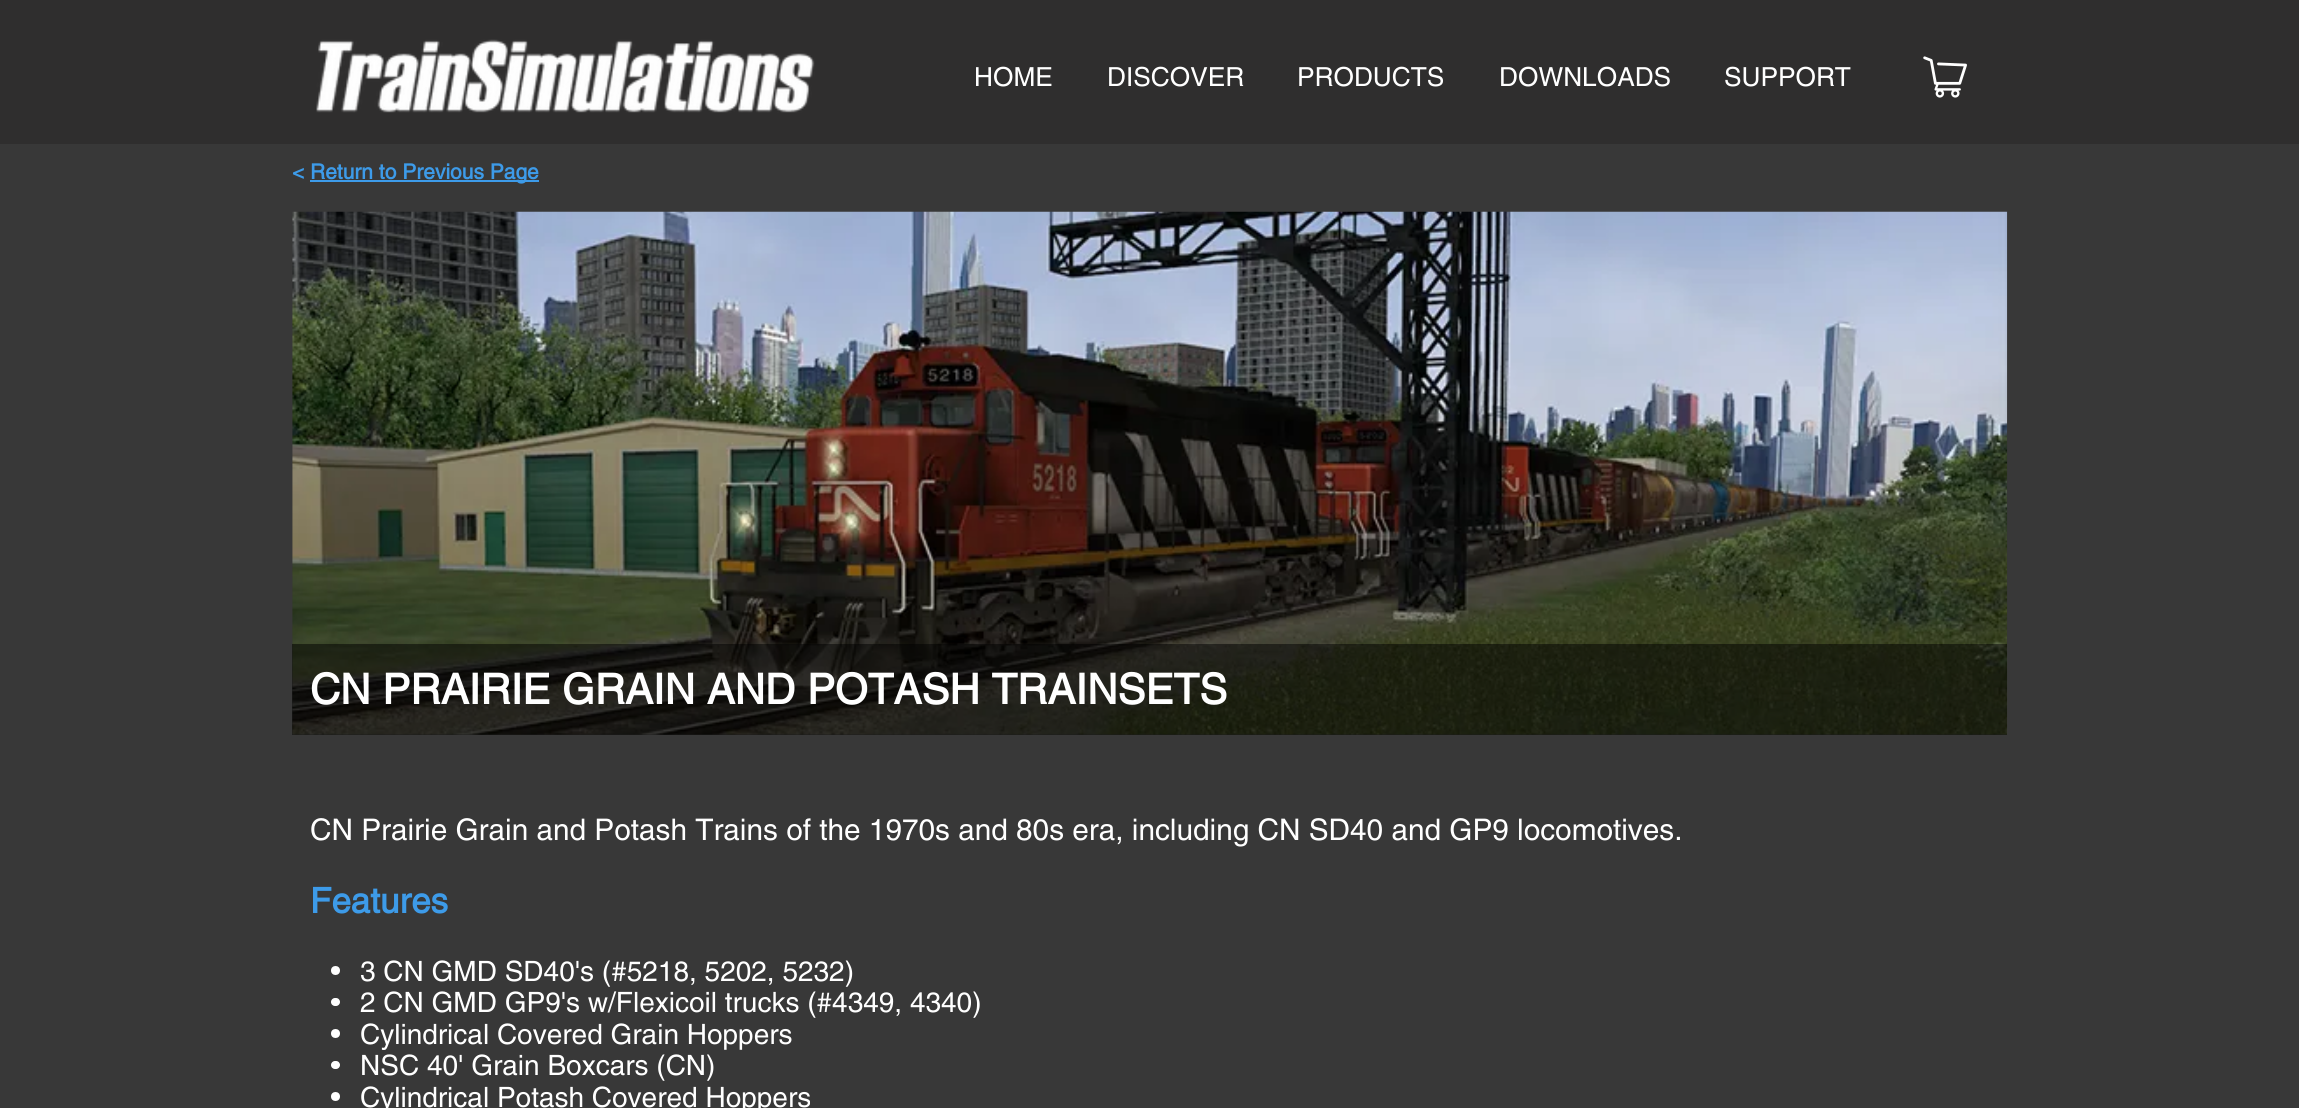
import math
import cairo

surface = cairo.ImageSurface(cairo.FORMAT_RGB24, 2299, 1108)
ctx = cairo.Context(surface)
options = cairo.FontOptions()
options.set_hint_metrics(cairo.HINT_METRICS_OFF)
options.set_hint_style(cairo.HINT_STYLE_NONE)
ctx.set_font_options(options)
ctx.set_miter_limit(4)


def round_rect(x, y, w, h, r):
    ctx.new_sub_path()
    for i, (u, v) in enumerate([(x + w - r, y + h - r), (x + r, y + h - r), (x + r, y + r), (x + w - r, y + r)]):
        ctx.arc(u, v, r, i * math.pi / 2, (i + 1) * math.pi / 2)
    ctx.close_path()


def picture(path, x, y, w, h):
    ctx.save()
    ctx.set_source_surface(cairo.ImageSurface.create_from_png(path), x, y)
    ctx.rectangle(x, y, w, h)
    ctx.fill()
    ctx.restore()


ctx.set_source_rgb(0.22, 0.22, 0.22)
ctx.paint()
ctx.set_source_rgb(0.184, 0.18, 0.18)
ctx.rectangle(0, 0, 2299, 144)
ctx.fill()
picture("img1.png", 316, 39, 499, 74)
ctx.select_font_face("helvetica")
ctx.set_font_size(26.25)
ctx.set_source_rgb(1, 1, 1)
ctx.move_to(974, 86)
ctx.show_text("HOME")
ctx.move_to(1107, 86)
ctx.show_text("DISCOVER")
ctx.move_to(1297, 86)
ctx.show_text("PRODUCTS")
ctx.move_to(1499, 86)
ctx.show_text("DOWNLOADS")
ctx.move_to(1724, 86)
ctx.show_text("SUPPORT")
picture("img2.png", 1923, 56, 44, 42)
ctx.select_font_face("helvetica", cairo.FONT_SLANT_NORMAL, cairo.FONT_WEIGHT_BOLD)
ctx.set_font_size(21)
ctx.set_source_rgb(0.239, 0.608, 0.914)
ctx.move_to(292, 179)
ctx.show_text("<")
ctx.rectangle(310, 180, 229, 2)
ctx.fill()
ctx.move_to(310, 179)
ctx.show_text("Return to Previous Page")
picture("img3.png", 292, 211, 1716, 524)
ctx.set_source_rgba(0, 0, 0, 0.5)
ctx.rectangle(292, 644, 1715, 91)
ctx.fill()
ctx.set_font_size(42)
ctx.set_source_rgb(1, 1, 1)
ctx.move_to(310, 704)
ctx.show_text("CN PRAIRIE GRAIN AND POTASH TRAINSETS")
ctx.select_font_face("helvetica")
ctx.set_font_size(29.75)
ctx.move_to(310, 840)
ctx.show_text("CN Prairie Grain and Potash Trains of the 1970s and 80s era, including CN SD40 and GP9 locomotives.")
ctx.select_font_face("helvetica", cairo.FONT_SLANT_NORMAL, cairo.FONT_WEIGHT_BOLD)
ctx.set_font_size(35)
ctx.set_source_rgb(0.239, 0.608, 0.914)
ctx.move_to(310, 913)
ctx.show_text("Features")
ctx.set_source_rgb(1, 1, 1)
ctx.new_path()
ctx.arc(335.5, 970.5, 4.5, 0, 2 * math.pi)
ctx.fill()
ctx.select_font_face("helvetica")
ctx.set_font_size(28)
ctx.move_to(360, 981)
ctx.show_text("3 CN GMD SD40's (#5218, 5202, 5232)")
round_rect(331, 998, 9, 8, 4)
ctx.fill()
ctx.move_to(360, 1012)
ctx.show_text("2 CN GMD GP9's w/Flexicoil trucks (#4349, 4340)")
ctx.new_path()
ctx.arc(335.5, 1033.5, 4.5, 0, 2 * math.pi)
ctx.fill()
ctx.move_to(360, 1044)
ctx.show_text("Cylindrical Covered Grain Hoppers")
round_rect(331, 1061, 9, 8, 4)
ctx.fill()
ctx.move_to(360, 1075)
ctx.show_text("NSC 40' Grain Boxcars (CN)")
ctx.new_path()
ctx.arc(335.5, 1096.5, 4.5, 0, 2 * math.pi)
ctx.fill()
ctx.move_to(360, 1107)
ctx.show_text("Cylindrical Potash Covered Hoppers")
surface.write_to_png("page.png")
